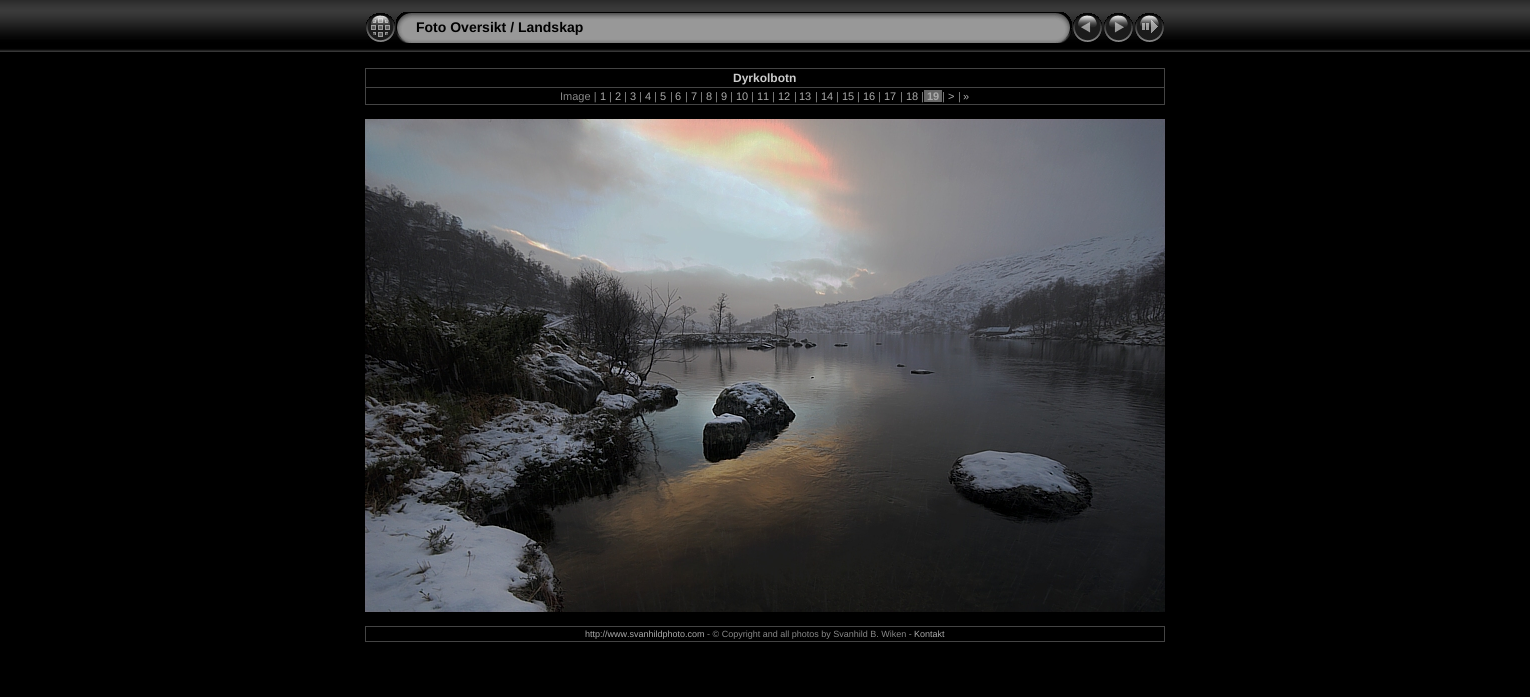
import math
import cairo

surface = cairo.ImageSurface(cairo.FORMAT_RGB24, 1530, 697)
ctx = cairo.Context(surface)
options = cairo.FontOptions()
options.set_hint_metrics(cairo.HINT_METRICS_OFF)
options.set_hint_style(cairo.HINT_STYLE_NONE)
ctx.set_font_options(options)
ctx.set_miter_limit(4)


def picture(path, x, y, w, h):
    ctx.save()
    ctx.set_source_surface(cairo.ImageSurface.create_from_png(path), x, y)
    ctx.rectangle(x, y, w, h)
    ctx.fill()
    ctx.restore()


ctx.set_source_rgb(0, 0, 0)
ctx.paint()
picture("img1.png", 0, 0, 1530, 52)
picture("img2.png", 366, 13, 29, 29)
picture("img3.png", 396, 12, 20, 31)
picture("img4.png", 416, 12, 636, 31)
ctx.select_font_face("Liberation Sans", cairo.FONT_SLANT_NORMAL, cairo.FONT_WEIGHT_BOLD)
ctx.set_font_size(14)
ctx.set_source_rgb(0, 0, 0)
ctx.move_to(416, 32)
ctx.show_text("Foto Oversikt / Landskap")
picture("img5.png", 1052, 12, 20, 31)
picture("img6.png", 1073, 13, 29, 29)
picture("img7.png", 1104, 13, 29, 29)
picture("img8.png", 1135, 13, 29, 29)
ctx.set_source_rgb(0.267, 0.267, 0.267)
ctx.rectangle(365, 68, 800, 1)
ctx.fill()
ctx.rectangle(1164, 68, 1, 37)
ctx.fill()
ctx.rectangle(365, 104, 800, 1)
ctx.fill()
ctx.rectangle(365, 68, 1, 37)
ctx.fill()
ctx.set_font_size(12)
ctx.set_source_rgb(0.8, 0.8, 0.8)
ctx.move_to(733, 82)
ctx.show_text("Dyrkolbotn")
ctx.set_source_rgb(0.267, 0.267, 0.267)
ctx.rectangle(365, 87, 800, 1)
ctx.fill()
ctx.select_font_face("Liberation Sans")
ctx.set_font_size(11)
ctx.set_source_rgb(0.533, 0.533, 0.533)
ctx.move_to(560, 100)
ctx.show_text("Image |")
ctx.set_source_rgb(0.667, 0.667, 0.667)
ctx.move_to(600, 100)
ctx.show_text("1")
ctx.set_source_rgb(0.533, 0.533, 0.533)
ctx.move_to(609, 100)
ctx.show_text("|")
ctx.set_source_rgb(0.667, 0.667, 0.667)
ctx.move_to(615, 100)
ctx.show_text("2")
ctx.set_source_rgb(0.533, 0.533, 0.533)
ctx.move_to(624, 100)
ctx.show_text("|")
ctx.set_source_rgb(0.667, 0.667, 0.667)
ctx.move_to(630, 100)
ctx.show_text("3")
ctx.set_source_rgb(0.533, 0.533, 0.533)
ctx.move_to(639, 100)
ctx.show_text("|")
ctx.set_source_rgb(0.667, 0.667, 0.667)
ctx.move_to(645, 100)
ctx.show_text("4")
ctx.set_source_rgb(0.533, 0.533, 0.533)
ctx.move_to(654, 100)
ctx.show_text("|")
ctx.set_source_rgb(0.667, 0.667, 0.667)
ctx.move_to(660, 100)
ctx.show_text("5")
ctx.set_source_rgb(0.533, 0.533, 0.533)
ctx.move_to(670, 100)
ctx.show_text("|")
ctx.set_source_rgb(0.667, 0.667, 0.667)
ctx.move_to(675, 100)
ctx.show_text("6")
ctx.set_source_rgb(0.533, 0.533, 0.533)
ctx.move_to(685, 100)
ctx.show_text("|")
ctx.set_source_rgb(0.667, 0.667, 0.667)
ctx.move_to(691, 100)
ctx.show_text("7")
ctx.set_source_rgb(0.533, 0.533, 0.533)
ctx.move_to(700, 100)
ctx.show_text("|")
ctx.set_source_rgb(0.667, 0.667, 0.667)
ctx.move_to(706, 100)
ctx.show_text("8")
ctx.set_source_rgb(0.533, 0.533, 0.533)
ctx.move_to(715, 100)
ctx.show_text("|")
ctx.set_source_rgb(0.667, 0.667, 0.667)
ctx.move_to(721, 100)
ctx.show_text("9")
ctx.set_source_rgb(0.533, 0.533, 0.533)
ctx.move_to(730, 100)
ctx.show_text("|")
ctx.set_source_rgb(0.667, 0.667, 0.667)
ctx.move_to(736, 100)
ctx.show_text("10")
ctx.set_source_rgb(0.533, 0.533, 0.533)
ctx.move_to(751, 100)
ctx.show_text("|")
ctx.set_source_rgb(0.667, 0.667, 0.667)
ctx.move_to(757, 100)
ctx.show_text("11")
ctx.set_source_rgb(0.533, 0.533, 0.533)
ctx.move_to(772, 100)
ctx.show_text("|")
ctx.set_source_rgb(0.667, 0.667, 0.667)
ctx.move_to(778, 100)
ctx.show_text("12")
ctx.set_source_rgb(0.533, 0.533, 0.533)
ctx.move_to(794, 100)
ctx.show_text("|")
ctx.set_source_rgb(0.667, 0.667, 0.667)
ctx.move_to(799, 100)
ctx.show_text("13")
ctx.set_source_rgb(0.533, 0.533, 0.533)
ctx.move_to(815, 100)
ctx.show_text("|")
ctx.set_source_rgb(0.667, 0.667, 0.667)
ctx.move_to(821, 100)
ctx.show_text("14")
ctx.set_source_rgb(0.533, 0.533, 0.533)
ctx.move_to(836, 100)
ctx.show_text("|")
ctx.set_source_rgb(0.667, 0.667, 0.667)
ctx.move_to(842, 100)
ctx.show_text("15")
ctx.set_source_rgb(0.533, 0.533, 0.533)
ctx.move_to(857, 100)
ctx.show_text("|")
ctx.set_source_rgb(0.667, 0.667, 0.667)
ctx.move_to(863, 100)
ctx.show_text("16")
ctx.set_source_rgb(0.533, 0.533, 0.533)
ctx.move_to(878, 100)
ctx.show_text("|")
ctx.set_source_rgb(0.667, 0.667, 0.667)
ctx.move_to(884, 100)
ctx.show_text("17")
ctx.set_source_rgb(0.533, 0.533, 0.533)
ctx.move_to(900, 100)
ctx.show_text("|")
ctx.set_source_rgb(0.667, 0.667, 0.667)
ctx.move_to(906, 100)
ctx.show_text("18")
ctx.set_source_rgb(0.533, 0.533, 0.533)
ctx.move_to(921, 100)
ctx.show_text("|")
ctx.set_source_rgb(0.4, 0.4, 0.4)
ctx.rectangle(924, 90, 18, 12)
ctx.fill()
ctx.select_font_face("Liberation Sans", cairo.FONT_SLANT_NORMAL, cairo.FONT_WEIGHT_BOLD)
ctx.set_source_rgb(0.667, 0.667, 0.667)
ctx.move_to(927, 100)
ctx.show_text("19")
ctx.select_font_face("Liberation Sans")
ctx.set_source_rgb(0.533, 0.533, 0.533)
ctx.move_to(942, 100)
ctx.show_text("|")
ctx.set_source_rgb(0.667, 0.667, 0.667)
ctx.move_to(948, 100)
ctx.show_text(">")
ctx.set_source_rgb(0.533, 0.533, 0.533)
ctx.move_to(958, 100)
ctx.show_text("|")
ctx.set_source_rgb(0.667, 0.667, 0.667)
ctx.move_to(963, 100)
ctx.show_text("»")
picture("img9.png", 365, 119, 800, 493)
ctx.set_source_rgb(0.267, 0.267, 0.267)
ctx.rectangle(365, 626, 800, 1)
ctx.fill()
ctx.rectangle(1164, 626, 1, 16)
ctx.fill()
ctx.rectangle(365, 641, 800, 1)
ctx.fill()
ctx.rectangle(365, 626, 1, 16)
ctx.fill()
ctx.set_font_size(9)
ctx.set_source_rgb(0.667, 0.667, 0.667)
ctx.move_to(585, 637)
ctx.show_text("http://www.svanhildphoto.com")
ctx.set_source_rgb(0.533, 0.533, 0.533)
ctx.move_to(707, 637)
ctx.show_text("- © Copyright and all photos by Svanhild B. Wiken -")
ctx.set_source_rgb(0.667, 0.667, 0.667)
ctx.move_to(914, 637)
ctx.show_text("Kontakt")
surface.write_to_png("page.png")
